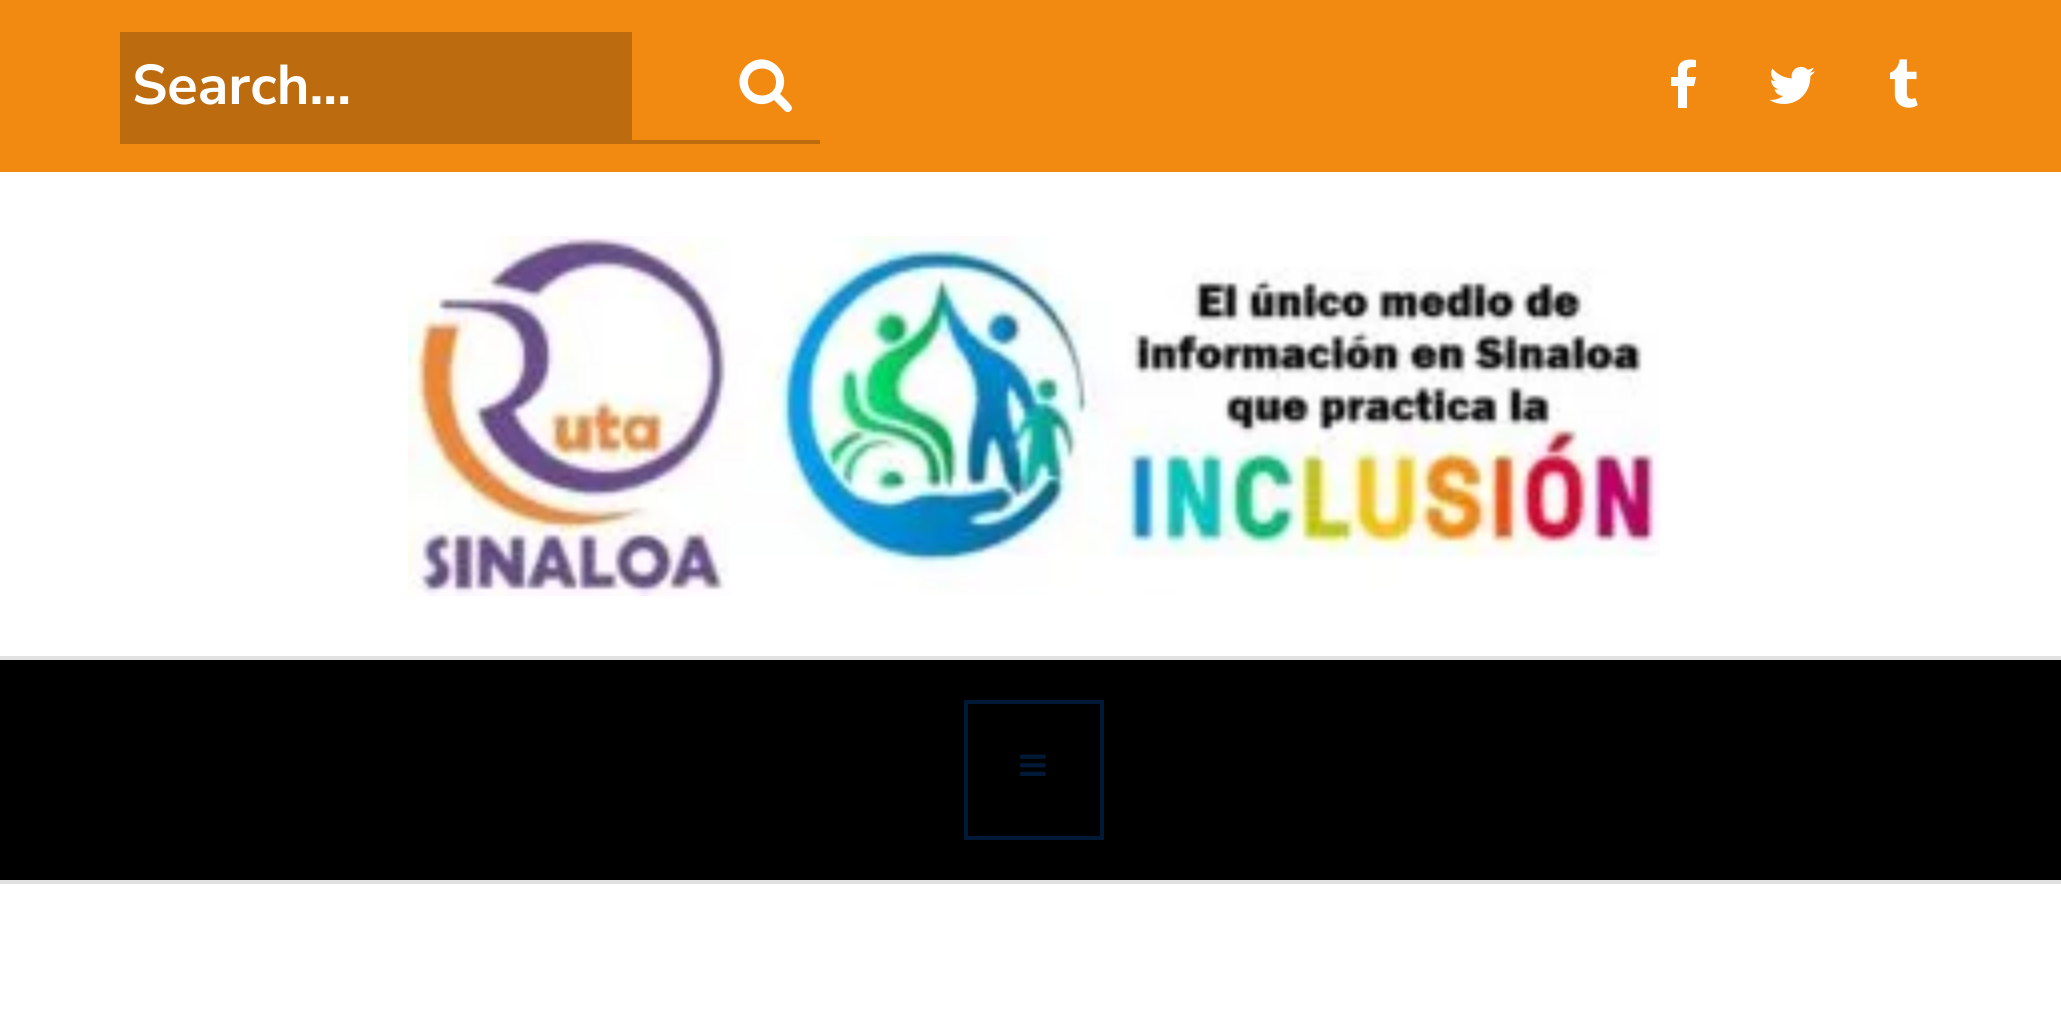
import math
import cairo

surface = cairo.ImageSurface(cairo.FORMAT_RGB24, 2061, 1028)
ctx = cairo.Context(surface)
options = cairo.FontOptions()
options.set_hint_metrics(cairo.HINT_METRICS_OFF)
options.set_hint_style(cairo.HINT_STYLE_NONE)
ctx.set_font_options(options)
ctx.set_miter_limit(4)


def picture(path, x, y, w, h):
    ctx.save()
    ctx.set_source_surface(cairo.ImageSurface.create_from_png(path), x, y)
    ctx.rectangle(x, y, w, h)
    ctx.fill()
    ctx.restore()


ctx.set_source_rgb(1, 1, 1)
ctx.paint()
ctx.set_source_rgb(0.949, 0.537, 0.067)
ctx.rectangle(0, 0, 2061, 172)
ctx.fill()
ctx.set_source_rgb(0.737, 0.42, 0.059)
ctx.rectangle(120, 140, 700, 4)
ctx.fill()
ctx.rectangle(120, 32, 512, 108)
ctx.fill()
ctx.select_font_face("Nunito Sans", cairo.FONT_SLANT_NORMAL, cairo.FONT_WEIGHT_BOLD)
ctx.set_font_size(56)
ctx.set_source_rgb(1, 1, 1)
ctx.move_to(132, 104)
ctx.show_text("Search...")
ctx.new_path()
ctx.move_to(776, 82)
ctx.curve_to(776, 100, 748, 100, 748, 82)
ctx.curve_to(748, 64, 776, 64, 776, 82)
ctx.close_path()
ctx.move_to(792, 108)
ctx.curve_to(792, 105, 783, 97, 780, 94)
ctx.curve_to(795, 73, 766, 47, 746, 66)
ctx.curve_to(727, 86, 753, 115, 774, 100)
ctx.line_to(785, 111)
ctx.curve_to(786, 112, 787, 112, 788, 112)
ctx.curve_to(790, 112, 792, 110, 792, 108)
ctx.close_path()
ctx.fill()
ctx.new_path()
ctx.move_to(1696, 60)
ctx.curve_to(1689, 59, 1680, 59, 1678, 68)
ctx.line_to(1678, 77)
ctx.line_to(1671, 77)
ctx.line_to(1671, 86)
ctx.line_to(1678, 86)
ctx.line_to(1678, 108)
ctx.line_to(1687, 108)
ctx.line_to(1687, 86)
ctx.line_to(1694, 86)
ctx.line_to(1696, 77)
ctx.line_to(1687, 77)
ctx.curve_to(1687, 68, 1686, 67, 1696, 67)
ctx.close_path()
ctx.fill()
picture("img1.png", 1769, 66, 46, 38)
picture("img2.png", 1889, 59, 29, 49)
picture("img3.png", 408, 236, 1252, 360)
ctx.set_source_rgb(0, 0, 0)
ctx.rectangle(0, 660, 2061, 220)
ctx.fill()
ctx.set_source_rgb(0.882, 0.882, 0.882)
ctx.rectangle(0, 656, 2061, 4)
ctx.fill()
ctx.rectangle(0, 880, 2061, 4)
ctx.fill()
ctx.rectangle(966, 702, 136, 136)
ctx.set_source_rgb(0, 0.098, 0.212)
ctx.set_line_width(4)
ctx.stroke()
picture("img4.png", 1020, 754, 26, 22)
surface.write_to_png("page.png")
